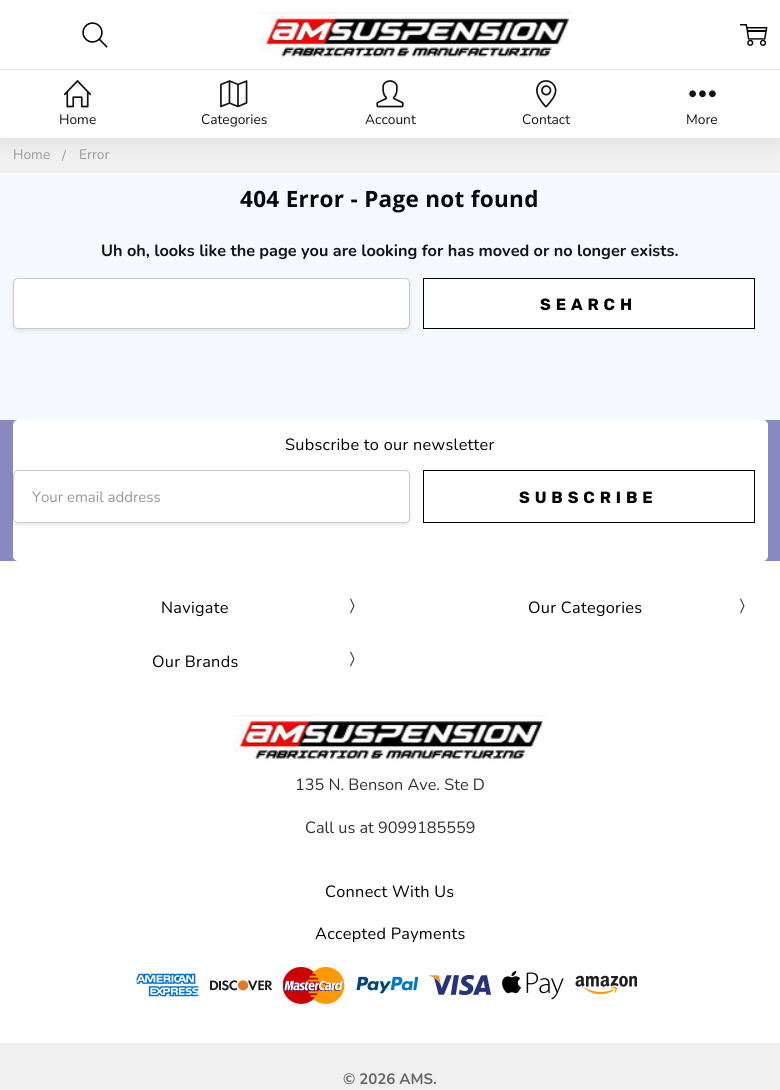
import math
import cairo

surface = cairo.ImageSurface(cairo.FORMAT_RGB24, 780, 1090)
ctx = cairo.Context(surface)
options = cairo.FontOptions()
options.set_hint_metrics(cairo.HINT_METRICS_OFF)
options.set_hint_style(cairo.HINT_STYLE_NONE)
ctx.set_font_options(options)
ctx.set_miter_limit(4)


def spaced_text(x, y, s, letter, word):
    ctx.move_to(x, y)
    for ch in s:
        ctx.show_text(ch)
        ctx.rel_move_to(letter + word * (ch == ' '), 0)


def round_rect(x, y, w, h, r):
    ctx.new_sub_path()
    for i, (u, v) in enumerate([(x + w - r, y + h - r), (x + r, y + h - r), (x + r, y + r), (x + w - r, y + r)]):
        ctx.arc(u, v, r, i * math.pi / 2, (i + 1) * math.pi / 2)
    ctx.close_path()


def shadow(x, y, w, h, r, blur, alpha):
    ctx.push_group_with_content(cairo.CONTENT_ALPHA)
    ctx.set_operator(cairo.OPERATOR_SOURCE)
    for i in range(15, -16, -2):
        e = blur * i / 6
        if min(w, h) + 2 * e > 0:
            ctx.set_source_rgba(0, 0, 0, alpha * math.erfc((i - 1) / 8.5) / 2)
            round_rect(x - e, y - e, w + 2 * e, h + 2 * e, max(0, min(r + e + blur * .6, min(w, h) / 2 + e)))
            ctx.fill()
    ctx.mask(ctx.pop_group())


def picture(path, x, y, w, h):
    ctx.save()
    ctx.set_source_surface(cairo.ImageSurface.create_from_png(path), x, y)
    ctx.rectangle(x, y, w, h)
    ctx.fill()
    ctx.restore()


ctx.set_source_rgb(0.957, 0.98, 1)
ctx.paint()
ctx.set_source_rgb(0.941, 0.941, 0.941)
ctx.rectangle(0, 138, 780, 35)
ctx.fill()
ctx.set_source_rgb(0, 0, 0)
shadow(0, 69, 780, 69, 0, 9.5, 0.1)
ctx.set_source_rgb(1, 1, 1)
ctx.rectangle(0, 0, 780, 69)
ctx.fill()
ctx.set_source_rgb(0.898, 0.898, 0.898)
ctx.rectangle(0, 69, 780, 1)
ctx.fill()
picture("img1.png", 260, 11, 312, 48)
picture("img2.png", 82, 22, 26, 26)
picture("img3.png", 740, 24, 28, 22)
ctx.set_source_rgb(1, 1, 1)
ctx.rectangle(0, 70, 780, 68)
ctx.fill()
picture("img4.png", 64, 80, 27, 28)
ctx.select_font_face("Nunito")
ctx.set_font_size(13.75)
ctx.set_source_rgb(0.075, 0.075, 0.075)
ctx.move_to(59, 124)
ctx.show_text("Home")
picture("img5.png", 220, 80, 28, 28)
ctx.move_to(201, 124)
ctx.show_text("Categories")
picture("img6.png", 376, 80, 28, 28)
ctx.move_to(365, 124)
ctx.show_text("Account")
picture("img7.png", 536, 80, 21, 28)
ctx.move_to(522, 124)
ctx.show_text("Contact")
picture("img8.png", 689, 90, 27, 8)
ctx.move_to(686, 124)
ctx.show_text("More")
ctx.set_source_rgb(0.6, 0.6, 0.6)
ctx.move_to(13, 159)
ctx.show_text("Home")
ctx.move_to(62, 160)
ctx.show_text("/")
ctx.move_to(79, 159)
ctx.show_text("Error")
ctx.select_font_face("Open Sans", cairo.FONT_SLANT_NORMAL, cairo.FONT_WEIGHT_BOLD)
ctx.set_font_size(22.5)
ctx.set_source_rgb(0.031, 0.035, 0.039)
spaced_text(240, 207, "404 Error - Page not found", 0.3, 0)
ctx.select_font_face("Nunito", cairo.FONT_SLANT_NORMAL, cairo.FONT_WEIGHT_BOLD)
ctx.set_font_size(16.25)
ctx.set_source_rgb(0.075, 0.075, 0.075)
ctx.move_to(101, 256)
ctx.show_text("Uh oh, looks like the page you are looking for has moved or no longer exists.")
ctx.set_source_rgb(0, 0, 0)
shadow(13, 280, 397, 51, 5, 2.5, 0.1)
ctx.set_source_rgb(1, 1, 1)
round_rect(13.5, 278.5, 396, 50, 4.5)
ctx.fill_preserve()
ctx.set_source_rgb(0.8, 0.8, 0.8)
ctx.set_line_width(1)
ctx.stroke()
ctx.set_source_rgb(1, 1, 1)
ctx.rectangle(423.5, 278.5, 331, 50)
ctx.fill_preserve()
ctx.set_source_rgb(0, 0, 0)
ctx.stroke()
ctx.select_font_face("Rubik", cairo.FONT_SLANT_NORMAL, cairo.FONT_WEIGHT_BOLD)
spaced_text(540, 310, "SEARCH", 4.9, 0)
ctx.set_source_rgb(1, 1, 1)
ctx.rectangle(0, 561, 780, 482)
ctx.fill()
ctx.set_source_rgb(0.529, 0.537, 0.753)
ctx.rectangle(0, 420, 780, 141)
ctx.fill()
ctx.set_source_rgb(1, 1, 1)
round_rect(13, 420, 755, 141, 5)
ctx.fill()
ctx.select_font_face("Nunito")
ctx.set_source_rgb(0, 0, 0)
spaced_text(285, 450, "Subscribe to our newsletter", 0.3, 0)
ctx.set_source_rgb(0, 0, 0)
shadow(13, 473, 397, 52, 5, 2.5, 0.1)
ctx.set_source_rgb(1, 1, 1)
round_rect(13.5, 470.5, 396, 52, 4.5)
ctx.fill_preserve()
ctx.set_source_rgb(0.8, 0.8, 0.8)
ctx.stroke()
ctx.set_font_size(15)
ctx.set_source_rgb(0.6, 0.6, 0.6)
ctx.move_to(32, 502)
ctx.show_text("Your email address")
ctx.rectangle(423.5, 470.5, 331, 52)
ctx.set_source_rgb(0, 0, 0)
ctx.stroke()
ctx.select_font_face("Rubik", cairo.FONT_SLANT_NORMAL, cairo.FONT_WEIGHT_BOLD)
ctx.set_font_size(16.25)
spaced_text(519, 503, "SUBSCRIBE", 4.9, 0)
ctx.select_font_face("Nunito")
spaced_text(161, 613, "Navigate", 0.3, 0)
ctx.select_font_face("WenQuanYi Zen Hei", cairo.FONT_SLANT_NORMAL, cairo.FONT_WEIGHT_BOLD)
ctx.set_source_rgb(0.196, 0.196, 0.196)
spaced_text(348, 612, "〉", 0.3, 0)
ctx.select_font_face("Nunito")
ctx.set_source_rgb(0, 0, 0)
spaced_text(528, 613, "Our Categories", 0.3, 0)
ctx.select_font_face("WenQuanYi Zen Hei", cairo.FONT_SLANT_NORMAL, cairo.FONT_WEIGHT_BOLD)
ctx.set_source_rgb(0.196, 0.196, 0.196)
spaced_text(738, 612, "〉", 0.3, 0)
ctx.select_font_face("Nunito")
ctx.set_source_rgb(0, 0, 0)
spaced_text(152, 667, "Our Brands", 0.3, 0)
ctx.select_font_face("WenQuanYi Zen Hei", cairo.FONT_SLANT_NORMAL, cairo.FONT_WEIGHT_BOLD)
ctx.set_source_rgb(0.196, 0.196, 0.196)
spaced_text(348, 665, "〉", 0.3, 0)
picture("img9.png", 234, 714, 312, 47)
ctx.select_font_face("Nunito")
ctx.move_to(295, 790)
ctx.show_text("135 N. Benson Ave. Ste D")
ctx.move_to(305, 833)
ctx.show_text("Call us at 9099185559")
ctx.set_source_rgb(0, 0, 0)
spaced_text(325, 897, "Connect With Us", 0.3, 0)
spaced_text(315, 939, "Accepted Payments", 0.3, 0)
picture("img10.png", 136, 973, 63, 24)
picture("img11.png", 210, 980, 62, 11)
picture("img12.png", 283, 967, 62, 37)
picture("img13.png", 356, 976, 62, 18)
picture("img14.png", 429, 974, 62, 22)
picture("img15.png", 502, 971, 62, 29)
picture("img16.png", 575, 975, 62, 20)
ctx.set_source_rgb(0.941, 0.941, 0.941)
ctx.rectangle(0, 1043, 780, 47)
ctx.fill()
ctx.select_font_face("Nunito", cairo.FONT_SLANT_NORMAL, cairo.FONT_WEIGHT_BOLD)
ctx.set_font_size(15)
ctx.set_source_rgb(0.4, 0.4, 0.4)
ctx.move_to(343, 1084)
ctx.show_text("© 2026 AMS.")
surface.write_to_png("page.png")
